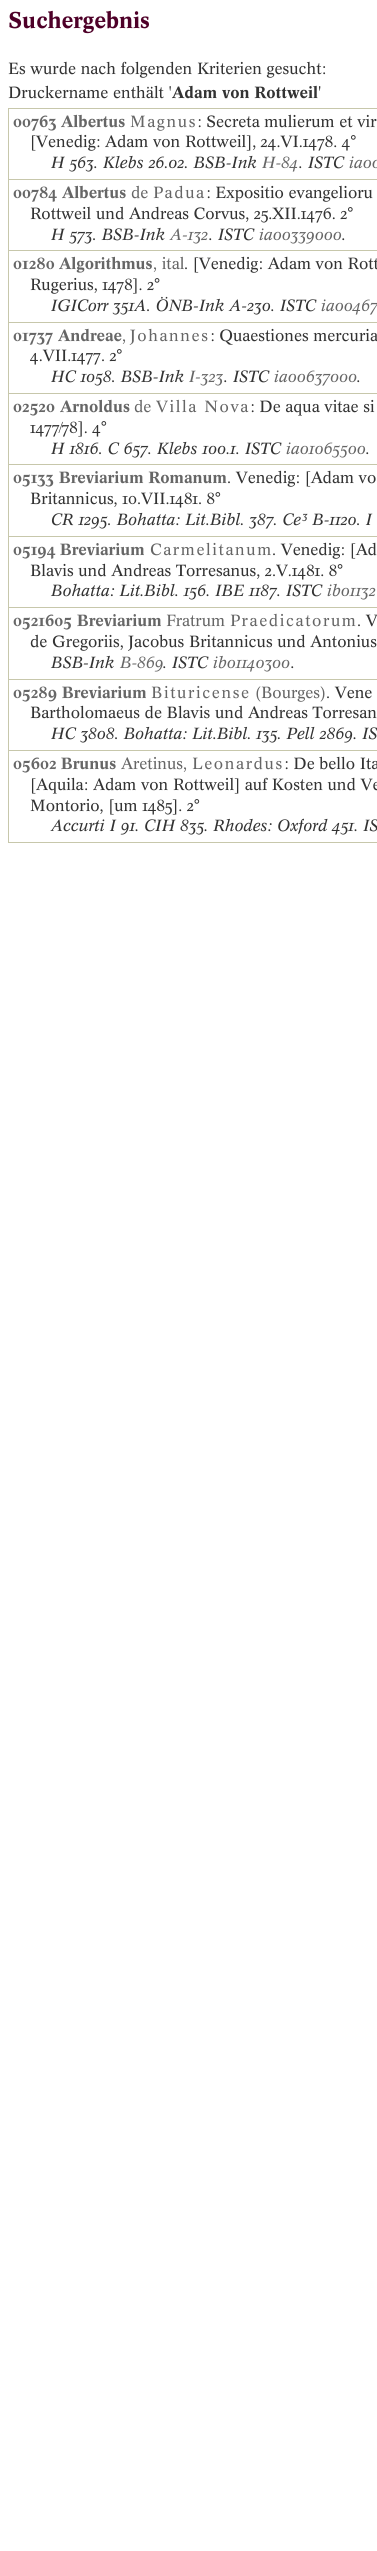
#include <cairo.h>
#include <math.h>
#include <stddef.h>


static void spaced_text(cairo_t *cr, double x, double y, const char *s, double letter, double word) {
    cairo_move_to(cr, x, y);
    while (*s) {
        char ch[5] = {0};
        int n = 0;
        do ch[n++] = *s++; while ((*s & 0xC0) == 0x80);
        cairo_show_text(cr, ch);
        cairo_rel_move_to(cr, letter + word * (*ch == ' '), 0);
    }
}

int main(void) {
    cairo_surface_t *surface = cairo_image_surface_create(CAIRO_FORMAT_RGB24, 377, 2551);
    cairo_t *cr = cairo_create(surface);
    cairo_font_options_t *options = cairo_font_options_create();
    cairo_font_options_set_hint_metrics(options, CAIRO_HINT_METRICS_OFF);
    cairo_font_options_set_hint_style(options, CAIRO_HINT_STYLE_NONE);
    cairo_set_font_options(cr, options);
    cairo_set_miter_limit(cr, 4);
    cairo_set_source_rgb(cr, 1, 1, 1);
    cairo_paint(cr);
    cairo_select_font_face(cr, "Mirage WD", CAIRO_FONT_SLANT_NORMAL, CAIRO_FONT_WEIGHT_BOLD);
    cairo_set_font_size(cr, 22.5);
    cairo_set_source_rgb(cr, 0.306, 0, 0.157);
    cairo_move_to(cr, 8, 28);
    cairo_show_text(cr, "Suchergebnis");
    cairo_select_font_face(cr, "Mirage WD", CAIRO_FONT_SLANT_NORMAL, CAIRO_FONT_WEIGHT_NORMAL);
    cairo_set_font_size(cr, 16);
    cairo_set_source_rgb(cr, 0.2, 0.2, 0.2);
    cairo_move_to(cr, 8, 74);
    cairo_show_text(cr, "Es wurde nach folgenden Kriterien gesucht:");
    cairo_move_to(cr, 8, 98);
    cairo_show_text(cr, "Druckername enthält '");
    cairo_select_font_face(cr, "Mirage WD", CAIRO_FONT_SLANT_NORMAL, CAIRO_FONT_WEIGHT_BOLD);
    cairo_move_to(cr, 172, 98);
    cairo_show_text(cr, "Adam von Rottweil");
    cairo_select_font_face(cr, "Mirage WD", CAIRO_FONT_SLANT_NORMAL, CAIRO_FONT_WEIGHT_NORMAL);
    cairo_move_to(cr, 318, 98);
    cairo_show_text(cr, "'");
    cairo_set_source_rgb(cr, 0.78, 0.78, 0.671);
    cairo_rectangle(cr, 8, 108, 369, 735);
    cairo_fill(cr);
    cairo_set_source_rgb(cr, 1, 1, 1);
    cairo_rectangle(cr, 9, 109, 368, 70);
    cairo_fill(cr);
    cairo_select_font_face(cr, "Mirage WD", CAIRO_FONT_SLANT_NORMAL, CAIRO_FONT_WEIGHT_BOLD);
    cairo_set_source_rgb(cr, 0.4, 0.4, 0.4);
    cairo_move_to(cr, 13, 127);
    cairo_show_text(cr, "00763");
    cairo_move_to(cr, 61, 127);
    cairo_show_text(cr, "Albertus");
    cairo_select_font_face(cr, "Mirage WD", CAIRO_FONT_SLANT_NORMAL, CAIRO_FONT_WEIGHT_NORMAL);
    spaced_text(cr, 130, 127, "Magnus", 1.6, 0);
    cairo_set_source_rgb(cr, 0.2, 0.2, 0.2);
    cairo_move_to(cr, 197, 127);
    cairo_show_text(cr, ": Secreta mulierum et vir");
    cairo_move_to(cr, 30, 147);
    cairo_show_text(cr, "[Venedig: Adam von Rottweil], 24.VI.1478. 4°");
    cairo_select_font_face(cr, "Mirage WD", CAIRO_FONT_SLANT_ITALIC, CAIRO_FONT_WEIGHT_NORMAL);
    cairo_move_to(cr, 51, 168);
    cairo_show_text(cr, "H 563. Klebs 26.02. BSB-Ink");
    cairo_set_source_rgb(cr, 0.4, 0.4, 0.4);
    cairo_move_to(cr, 262, 168);
    cairo_show_text(cr, "H-84");
    cairo_set_source_rgb(cr, 0.2, 0.2, 0.2);
    cairo_move_to(cr, 299, 168);
    cairo_show_text(cr, ". ISTC");
    cairo_set_source_rgb(cr, 0.4, 0.4, 0.4);
    cairo_move_to(cr, 349, 168);
    cairo_show_text(cr, "ia00");
    cairo_set_source_rgb(cr, 1, 1, 1);
    cairo_rectangle(cr, 9, 180, 368, 70);
    cairo_fill(cr);
    cairo_select_font_face(cr, "Mirage WD", CAIRO_FONT_SLANT_NORMAL, CAIRO_FONT_WEIGHT_BOLD);
    cairo_set_source_rgb(cr, 0.4, 0.4, 0.4);
    cairo_move_to(cr, 13, 198);
    cairo_show_text(cr, "00784");
    cairo_move_to(cr, 62, 198);
    cairo_show_text(cr, "Albertus");
    cairo_select_font_face(cr, "Mirage WD", CAIRO_FONT_SLANT_NORMAL, CAIRO_FONT_WEIGHT_NORMAL);
    cairo_move_to(cr, 131, 198);
    cairo_show_text(cr, "de");
    spaced_text(cr, 153, 198, "Padua", 1.6, 0);
    cairo_set_source_rgb(cr, 0.2, 0.2, 0.2);
    cairo_move_to(cr, 206, 198);
    cairo_show_text(cr, ": Expositio evangelioru");
    cairo_move_to(cr, 30, 219);
    cairo_show_text(cr, "Rottweil und Andreas Corvus, 25.XII.1476. 2°");
    cairo_select_font_face(cr, "Mirage WD", CAIRO_FONT_SLANT_ITALIC, CAIRO_FONT_WEIGHT_NORMAL);
    cairo_move_to(cr, 51, 240);
    cairo_show_text(cr, "H 573. BSB-Ink");
    cairo_set_source_rgb(cr, 0.4, 0.4, 0.4);
    cairo_move_to(cr, 170, 240);
    cairo_show_text(cr, "A-132");
    cairo_set_source_rgb(cr, 0.2, 0.2, 0.2);
    cairo_move_to(cr, 209, 240);
    cairo_show_text(cr, ". ISTC");
    cairo_set_source_rgb(cr, 0.4, 0.4, 0.4);
    cairo_move_to(cr, 259, 240);
    cairo_show_text(cr, "ia00339000");
    cairo_set_source_rgb(cr, 0.2, 0.2, 0.2);
    cairo_move_to(cr, 342, 240);
    cairo_show_text(cr, ".");
    cairo_set_source_rgb(cr, 1, 1, 1);
    cairo_rectangle(cr, 9, 251, 368, 71);
    cairo_fill(cr);
    cairo_select_font_face(cr, "Mirage WD", CAIRO_FONT_SLANT_NORMAL, CAIRO_FONT_WEIGHT_BOLD);
    cairo_set_source_rgb(cr, 0.4, 0.4, 0.4);
    cairo_move_to(cr, 13, 269);
    cairo_show_text(cr, "01280");
    cairo_move_to(cr, 59, 269);
    cairo_show_text(cr, "Algorithmus");
    cairo_select_font_face(cr, "Mirage WD", CAIRO_FONT_SLANT_NORMAL, CAIRO_FONT_WEIGHT_NORMAL);
    cairo_move_to(cr, 153, 269);
    cairo_show_text(cr, ", ital");
    cairo_set_source_rgb(cr, 0.2, 0.2, 0.2);
    cairo_move_to(cr, 184, 269);
    cairo_show_text(cr, ". [Venedig: Adam von Rott");
    cairo_move_to(cr, 30, 290);
    cairo_show_text(cr, "Rugerius, 1478]. 2°");
    cairo_select_font_face(cr, "Mirage WD", CAIRO_FONT_SLANT_ITALIC, CAIRO_FONT_WEIGHT_NORMAL);
    cairo_move_to(cr, 51, 311);
    cairo_show_text(cr, "IGICorr 351A. ÖNB-Ink A-230. ISTC");
    cairo_set_source_rgb(cr, 0.4, 0.4, 0.4);
    cairo_move_to(cr, 321, 311);
    cairo_show_text(cr, "ia00467");
    cairo_set_source_rgb(cr, 1, 1, 1);
    cairo_rectangle(cr, 9, 323, 368, 70);
    cairo_fill(cr);
    cairo_select_font_face(cr, "Mirage WD", CAIRO_FONT_SLANT_NORMAL, CAIRO_FONT_WEIGHT_BOLD);
    cairo_set_source_rgb(cr, 0.4, 0.4, 0.4);
    cairo_move_to(cr, 13, 341);
    cairo_show_text(cr, "01737");
    cairo_move_to(cr, 58, 341);
    cairo_show_text(cr, "Andreae");
    cairo_select_font_face(cr, "Mirage WD", CAIRO_FONT_SLANT_NORMAL, CAIRO_FONT_WEIGHT_NORMAL);
    cairo_move_to(cr, 122, 341);
    cairo_show_text(cr, ",");
    spaced_text(cr, 130, 341, "Johannes", 1.6, 0);
    cairo_set_source_rgb(cr, 0.2, 0.2, 0.2);
    cairo_move_to(cr, 210, 341);
    cairo_show_text(cr, ": Quaestiones mercuria");
    cairo_move_to(cr, 30, 361);
    cairo_show_text(cr, "4.VII.1477. 2°");
    cairo_select_font_face(cr, "Mirage WD", CAIRO_FONT_SLANT_ITALIC, CAIRO_FONT_WEIGHT_NORMAL);
    cairo_move_to(cr, 51, 382);
    cairo_show_text(cr, "HC 1058. BSB-Ink");
    cairo_set_source_rgb(cr, 0.4, 0.4, 0.4);
    cairo_move_to(cr, 189, 382);
    cairo_show_text(cr, "I-323");
    cairo_set_source_rgb(cr, 0.2, 0.2, 0.2);
    cairo_move_to(cr, 224, 382);
    cairo_show_text(cr, ". ISTC");
    cairo_set_source_rgb(cr, 0.4, 0.4, 0.4);
    cairo_move_to(cr, 274, 382);
    cairo_show_text(cr, "ia00637000");
    cairo_set_source_rgb(cr, 0.2, 0.2, 0.2);
    cairo_move_to(cr, 357, 382);
    cairo_show_text(cr, ".");
    cairo_set_source_rgb(cr, 1, 1, 1);
    cairo_rectangle(cr, 9, 394, 368, 70);
    cairo_fill(cr);
    cairo_select_font_face(cr, "Mirage WD", CAIRO_FONT_SLANT_NORMAL, CAIRO_FONT_WEIGHT_BOLD);
    cairo_set_source_rgb(cr, 0.4, 0.4, 0.4);
    cairo_move_to(cr, 13, 412);
    cairo_show_text(cr, "02520");
    cairo_move_to(cr, 60, 412);
    cairo_show_text(cr, "Arnoldus");
    cairo_select_font_face(cr, "Mirage WD", CAIRO_FONT_SLANT_NORMAL, CAIRO_FONT_WEIGHT_NORMAL);
    cairo_move_to(cr, 134, 412);
    cairo_show_text(cr, "de");
    spaced_text(cr, 156, 412, "Villa Nova", 1.6, 0);
    cairo_set_source_rgb(cr, 0.2, 0.2, 0.2);
    cairo_move_to(cr, 250, 412);
    cairo_show_text(cr, ": De aqua vitae si");
    cairo_move_to(cr, 30, 433);
    cairo_show_text(cr, "1477/78]. 4°");
    cairo_select_font_face(cr, "Mirage WD", CAIRO_FONT_SLANT_ITALIC, CAIRO_FONT_WEIGHT_NORMAL);
    cairo_move_to(cr, 51, 454);
    cairo_show_text(cr, "H 1816. C 657. Klebs 100.1. ISTC");
    cairo_set_source_rgb(cr, 0.4, 0.4, 0.4);
    cairo_move_to(cr, 286, 454);
    cairo_show_text(cr, "ia01065500");
    cairo_set_source_rgb(cr, 0.2, 0.2, 0.2);
    cairo_move_to(cr, 366, 454);
    cairo_show_text(cr, ".");
    cairo_set_source_rgb(cr, 1, 1, 1);
    cairo_rectangle(cr, 9, 465, 368, 71);
    cairo_fill(cr);
    cairo_select_font_face(cr, "Mirage WD", CAIRO_FONT_SLANT_NORMAL, CAIRO_FONT_WEIGHT_BOLD);
    cairo_set_source_rgb(cr, 0.4, 0.4, 0.4);
    cairo_move_to(cr, 13, 483);
    cairo_show_text(cr, "05133");
    cairo_move_to(cr, 59, 483);
    cairo_show_text(cr, "Breviarium Romanum");
    cairo_select_font_face(cr, "Mirage WD", CAIRO_FONT_SLANT_NORMAL, CAIRO_FONT_WEIGHT_NORMAL);
    cairo_set_source_rgb(cr, 0.2, 0.2, 0.2);
    cairo_move_to(cr, 227, 483);
    cairo_show_text(cr, ". Venedig: [Adam vo");
    cairo_move_to(cr, 30, 504);
    cairo_show_text(cr, "Britannicus, 10.VII.1481. 8°");
    cairo_select_font_face(cr, "Mirage WD", CAIRO_FONT_SLANT_ITALIC, CAIRO_FONT_WEIGHT_NORMAL);
    cairo_move_to(cr, 51, 525);
    cairo_show_text(cr, "CR 1295. Bohatta: Lit.Bibl. 387. Ce³ B-1120. I");
    cairo_set_source_rgb(cr, 1, 1, 1);
    cairo_rectangle(cr, 9, 537, 368, 70);
    cairo_fill(cr);
    cairo_select_font_face(cr, "Mirage WD", CAIRO_FONT_SLANT_NORMAL, CAIRO_FONT_WEIGHT_BOLD);
    cairo_set_source_rgb(cr, 0.4, 0.4, 0.4);
    cairo_move_to(cr, 13, 555);
    cairo_show_text(cr, "05194");
    cairo_move_to(cr, 60, 555);
    cairo_show_text(cr, "Breviarium");
    cairo_select_font_face(cr, "Mirage WD", CAIRO_FONT_SLANT_NORMAL, CAIRO_FONT_WEIGHT_NORMAL);
    spaced_text(cr, 150, 555, "Carmelitanum", 1.6, 0);
    cairo_set_source_rgb(cr, 0.2, 0.2, 0.2);
    cairo_move_to(cr, 272, 555);
    cairo_show_text(cr, ". Venedig: [Ad");
    cairo_move_to(cr, 30, 576);
    cairo_show_text(cr, "Blavis und Andreas Torresanus, 2.V.1481. 8°");
    cairo_select_font_face(cr, "Mirage WD", CAIRO_FONT_SLANT_ITALIC, CAIRO_FONT_WEIGHT_NORMAL);
    cairo_move_to(cr, 51, 596);
    cairo_show_text(cr, "Bohatta: Lit.Bibl. 156. IBE 1187. ISTC");
    cairo_set_source_rgb(cr, 0.4, 0.4, 0.4);
    cairo_move_to(cr, 327, 596);
    cairo_show_text(cr, "ib01132");
    cairo_set_source_rgb(cr, 1, 1, 1);
    cairo_rectangle(cr, 9, 608, 368, 71);
    cairo_fill(cr);
    cairo_select_font_face(cr, "Mirage WD", CAIRO_FONT_SLANT_NORMAL, CAIRO_FONT_WEIGHT_BOLD);
    cairo_set_source_rgb(cr, 0.4, 0.4, 0.4);
    cairo_move_to(cr, 13, 626);
    cairo_show_text(cr, "0521605");
    cairo_move_to(cr, 77, 626);
    cairo_show_text(cr, "Breviarium");
    cairo_select_font_face(cr, "Mirage WD", CAIRO_FONT_SLANT_NORMAL, CAIRO_FONT_WEIGHT_NORMAL);
    cairo_move_to(cr, 166, 626);
    cairo_show_text(cr, "Fratrum");
    spaced_text(cr, 230, 626, "Praedicatorum", 1.6, 0);
    cairo_set_source_rgb(cr, 0.2, 0.2, 0.2);
    cairo_move_to(cr, 357, 626);
    cairo_show_text(cr, ". V");
    cairo_move_to(cr, 30, 647);
    cairo_show_text(cr, "de Gregoriis, Jacobus Britannicus und Antonius");
    cairo_select_font_face(cr, "Mirage WD", CAIRO_FONT_SLANT_ITALIC, CAIRO_FONT_WEIGHT_NORMAL);
    cairo_move_to(cr, 51, 668);
    cairo_show_text(cr, "BSB-Ink");
    cairo_set_source_rgb(cr, 0.4, 0.4, 0.4);
    cairo_move_to(cr, 120, 668);
    cairo_show_text(cr, "B-869");
    cairo_set_source_rgb(cr, 0.2, 0.2, 0.2);
    cairo_move_to(cr, 163, 668);
    cairo_show_text(cr, ". ISTC");
    cairo_set_source_rgb(cr, 0.4, 0.4, 0.4);
    cairo_move_to(cr, 213, 668);
    cairo_show_text(cr, "ib01140300");
    cairo_set_source_rgb(cr, 0.2, 0.2, 0.2);
    cairo_move_to(cr, 291, 668);
    cairo_show_text(cr, ".");
    cairo_set_source_rgb(cr, 1, 1, 1);
    cairo_rectangle(cr, 9, 680, 368, 70);
    cairo_fill(cr);
    cairo_select_font_face(cr, "Mirage WD", CAIRO_FONT_SLANT_NORMAL, CAIRO_FONT_WEIGHT_BOLD);
    cairo_set_source_rgb(cr, 0.4, 0.4, 0.4);
    cairo_move_to(cr, 13, 698);
    cairo_show_text(cr, "05289");
    cairo_move_to(cr, 62, 698);
    cairo_show_text(cr, "Breviarium");
    cairo_select_font_face(cr, "Mirage WD", CAIRO_FONT_SLANT_NORMAL, CAIRO_FONT_WEIGHT_NORMAL);
    spaced_text(cr, 151, 698, "Bituricense", 1.6, 0);
    cairo_move_to(cr, 255, 698);
    cairo_show_text(cr, "(Bourges)");
    cairo_set_source_rgb(cr, 0.2, 0.2, 0.2);
    cairo_move_to(cr, 326, 698);
    cairo_show_text(cr, ". Vene");
    cairo_move_to(cr, 30, 718);
    cairo_show_text(cr, "Bartholomaeus de Blavis und Andreas Torresan");
    cairo_select_font_face(cr, "Mirage WD", CAIRO_FONT_SLANT_ITALIC, CAIRO_FONT_WEIGHT_NORMAL);
    cairo_move_to(cr, 51, 739);
    cairo_show_text(cr, "HC 3808. Bohatta: Lit.Bibl. 135. Pell 2869. IS");
    cairo_set_source_rgb(cr, 1, 1, 1);
    cairo_rectangle(cr, 9, 751, 368, 91);
    cairo_fill(cr);
    cairo_select_font_face(cr, "Mirage WD", CAIRO_FONT_SLANT_NORMAL, CAIRO_FONT_WEIGHT_BOLD);
    cairo_set_source_rgb(cr, 0.4, 0.4, 0.4);
    cairo_move_to(cr, 13, 769);
    cairo_show_text(cr, "05602");
    cairo_move_to(cr, 61, 769);
    cairo_show_text(cr, "Brunus");
    cairo_select_font_face(cr, "Mirage WD", CAIRO_FONT_SLANT_NORMAL, CAIRO_FONT_WEIGHT_NORMAL);
    cairo_move_to(cr, 121, 769);
    cairo_show_text(cr, "Aretinus,");
    spaced_text(cr, 192, 769, "Leonardus", 1.6, 0);
    cairo_set_source_rgb(cr, 0.2, 0.2, 0.2);
    cairo_move_to(cr, 284, 769);
    cairo_show_text(cr, ": De bello Ita");
    cairo_move_to(cr, 30, 790);
    cairo_show_text(cr, "[Aquila: Adam von Rottweil] auf Kosten und Ve");
    cairo_move_to(cr, 30, 811);
    cairo_show_text(cr, "Montorio, [um 1485]. 2°");
    cairo_select_font_face(cr, "Mirage WD", CAIRO_FONT_SLANT_ITALIC, CAIRO_FONT_WEIGHT_NORMAL);
    cairo_move_to(cr, 51, 831);
    cairo_show_text(cr, "Accurti I 91. CIH 835. Rhodes: Oxford 451. IS");
    cairo_surface_write_to_png(surface, "page.png");
    cairo_font_options_destroy(options);
    cairo_destroy(cr);
    cairo_surface_destroy(surface);
    return 0;
}
